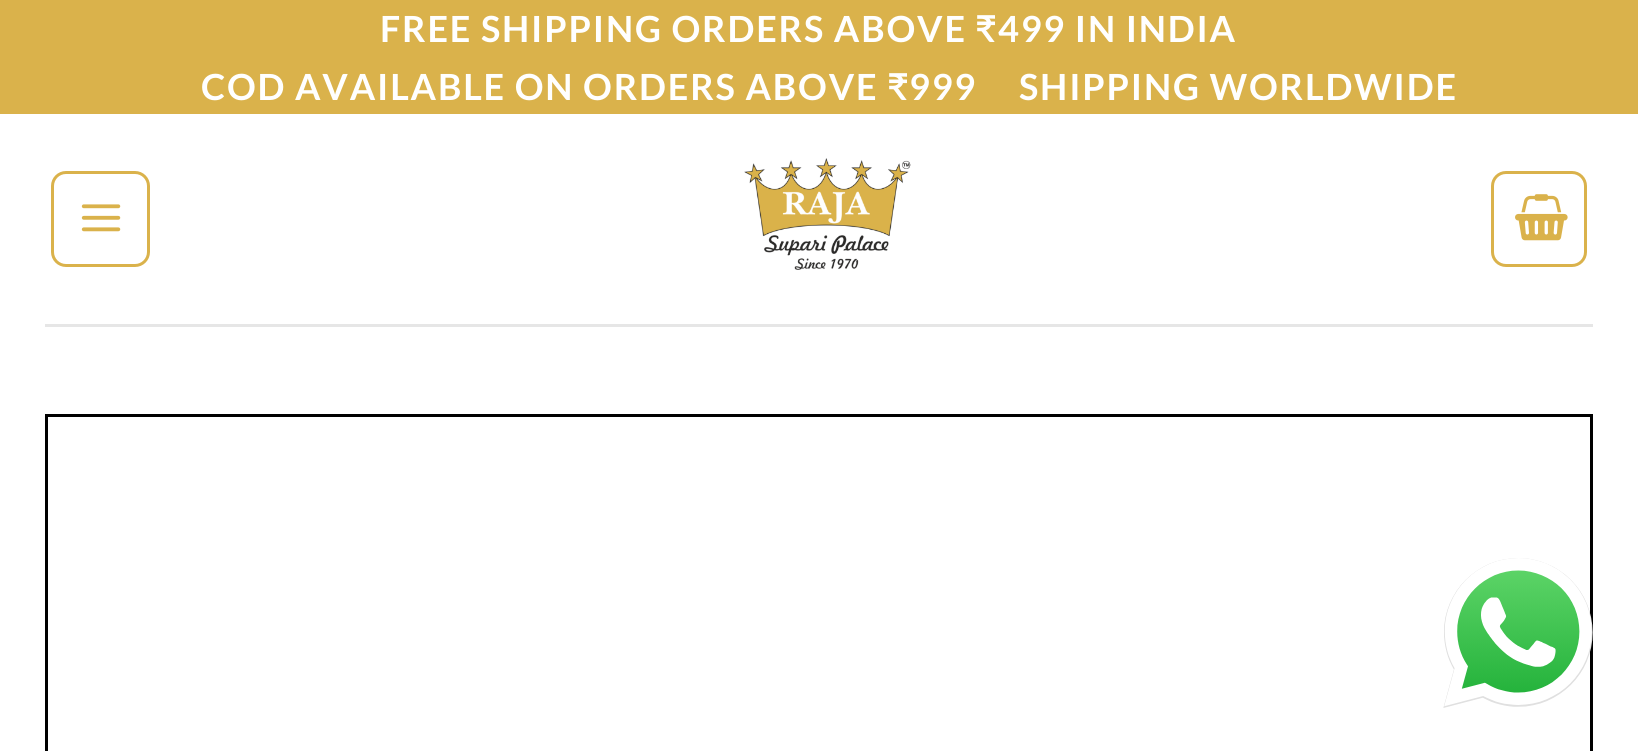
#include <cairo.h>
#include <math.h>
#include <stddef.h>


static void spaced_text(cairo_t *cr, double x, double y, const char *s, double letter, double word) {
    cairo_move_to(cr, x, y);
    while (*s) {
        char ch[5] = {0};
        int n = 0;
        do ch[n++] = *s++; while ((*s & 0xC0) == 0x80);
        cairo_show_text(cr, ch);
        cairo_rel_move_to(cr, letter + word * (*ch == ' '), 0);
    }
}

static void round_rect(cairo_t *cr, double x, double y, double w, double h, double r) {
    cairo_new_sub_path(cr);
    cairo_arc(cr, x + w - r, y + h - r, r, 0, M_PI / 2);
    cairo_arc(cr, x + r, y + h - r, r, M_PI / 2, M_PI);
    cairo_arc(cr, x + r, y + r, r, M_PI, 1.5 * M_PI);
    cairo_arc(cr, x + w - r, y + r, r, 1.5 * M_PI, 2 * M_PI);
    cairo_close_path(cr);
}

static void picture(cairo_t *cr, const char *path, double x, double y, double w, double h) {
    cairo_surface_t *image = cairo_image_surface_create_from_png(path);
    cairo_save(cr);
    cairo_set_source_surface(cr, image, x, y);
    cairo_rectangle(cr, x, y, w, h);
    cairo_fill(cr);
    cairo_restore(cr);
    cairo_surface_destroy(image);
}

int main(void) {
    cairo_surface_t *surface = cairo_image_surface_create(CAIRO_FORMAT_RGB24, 1638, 751);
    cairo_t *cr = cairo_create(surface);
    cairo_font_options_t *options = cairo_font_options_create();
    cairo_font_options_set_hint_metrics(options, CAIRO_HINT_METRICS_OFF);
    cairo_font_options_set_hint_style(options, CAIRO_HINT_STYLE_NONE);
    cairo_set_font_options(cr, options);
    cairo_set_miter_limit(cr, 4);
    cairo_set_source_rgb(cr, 1, 1, 1);
    cairo_paint(cr);
    cairo_set_source_rgb(cr, 0.855, 0.698, 0.294);
    cairo_rectangle(cr, 0, 0, 1638, 114);
    cairo_fill(cr);
    cairo_select_font_face(cr, "Lato", CAIRO_FONT_SLANT_NORMAL, CAIRO_FONT_WEIGHT_BOLD);
    cairo_set_font_size(cr, 36);
    cairo_set_source_rgb(cr, 1, 1, 1);
    spaced_text(cr, 380, 42, "FREE SHIPPING ORDERS ABOVE", 1.8, 0);
    cairo_select_font_face(cr, "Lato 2", CAIRO_FONT_SLANT_NORMAL, CAIRO_FONT_WEIGHT_BOLD);
    spaced_text(cr, 975, 42, "₹", 1.8, 0);
    cairo_select_font_face(cr, "Lato", CAIRO_FONT_SLANT_NORMAL, CAIRO_FONT_WEIGHT_BOLD);
    spaced_text(cr, 998, 42, "499 IN INDIA", 1.8, 0);
    spaced_text(cr, 201, 100, "COD AVAILABLE ON ORDERS ABOVE", 1.8, 0);
    cairo_select_font_face(cr, "Lato 2", CAIRO_FONT_SLANT_NORMAL, CAIRO_FONT_WEIGHT_BOLD);
    spaced_text(cr, 887, 100, "₹", 1.8, 0);
    cairo_select_font_face(cr, "Lato", CAIRO_FONT_SLANT_NORMAL, CAIRO_FONT_WEIGHT_BOLD);
    spaced_text(cr, 909, 100, "999", 1.8, 0);
    spaced_text(cr, 1019, 100, "SHIPPING WORLDWIDE", 1.8, 0);
    round_rect(cr, 52.5, 172.5, 96, 93, 13.5);
    cairo_set_source_rgb(cr, 0.855, 0.698, 0.294);
    cairo_set_line_width(cr, 3);
    cairo_stroke(cr);
    picture(cr, "img1.png", 81, 204, 40, 28);
    picture(cr, "img2.png", 744, 158, 167, 112);
    round_rect(cr, 1492.5, 172.5, 93, 93, 13.5);
    cairo_stroke(cr);
    picture(cr, "img3.png", 1515, 194, 53, 47);
    cairo_set_source_rgb(cr, 0.902, 0.902, 0.902);
    cairo_rectangle(cr, 45, 324, 1548, 3);
    cairo_fill(cr);
    cairo_rectangle(cr, 46.5, 415.5, 1545, 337);
    cairo_set_source_rgb(cr, 0, 0, 0);
    cairo_stroke(cr);
    picture(cr, "img4.png", 1443, 558, 150, 150);
    cairo_surface_write_to_png(surface, "page.png");
    cairo_font_options_destroy(options);
    cairo_destroy(cr);
    cairo_surface_destroy(surface);
    return 0;
}
